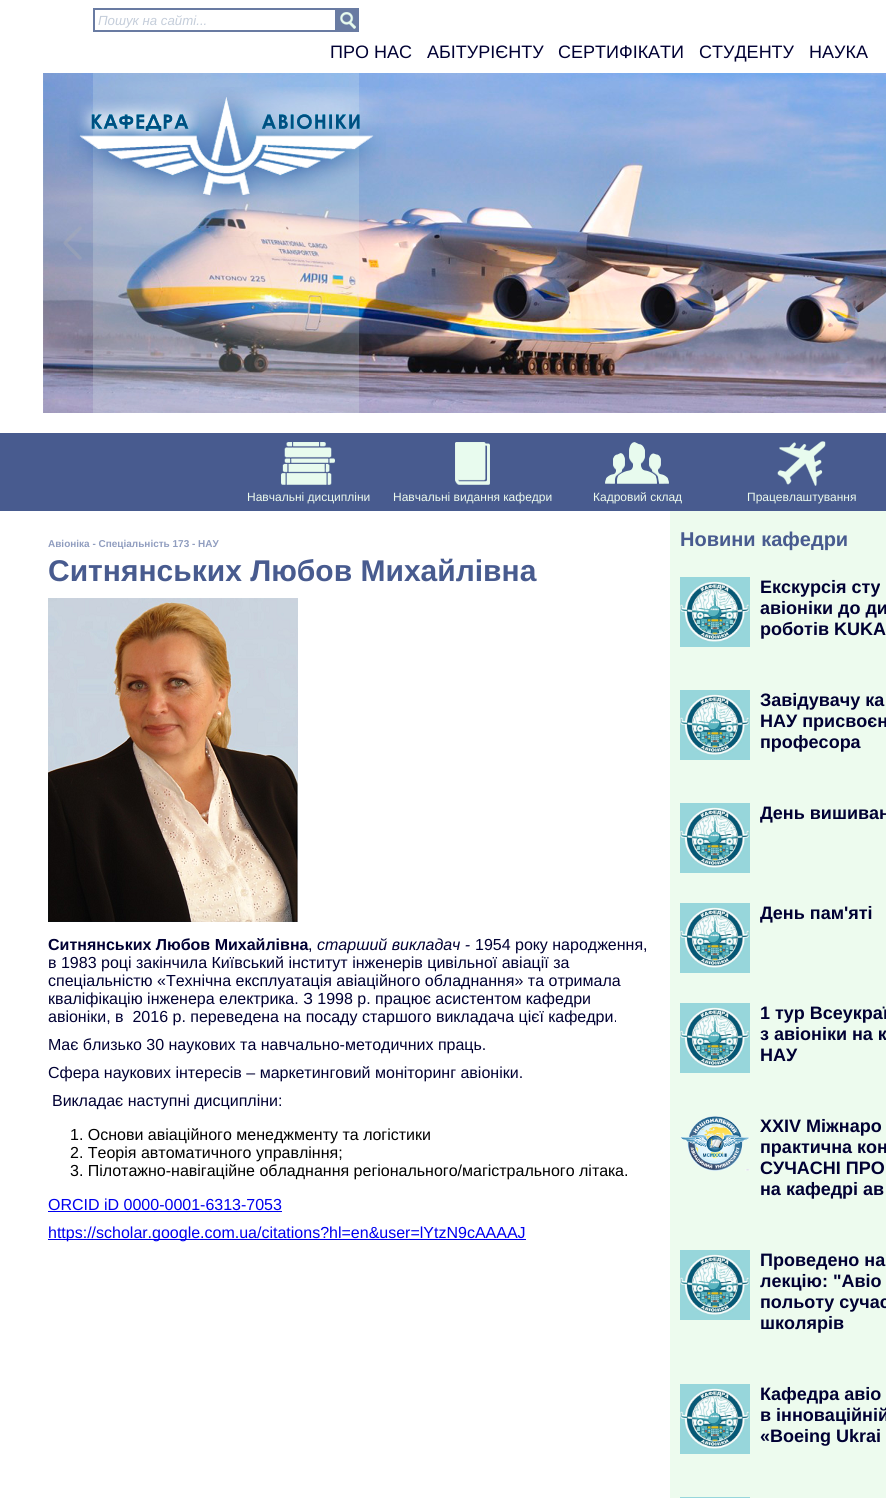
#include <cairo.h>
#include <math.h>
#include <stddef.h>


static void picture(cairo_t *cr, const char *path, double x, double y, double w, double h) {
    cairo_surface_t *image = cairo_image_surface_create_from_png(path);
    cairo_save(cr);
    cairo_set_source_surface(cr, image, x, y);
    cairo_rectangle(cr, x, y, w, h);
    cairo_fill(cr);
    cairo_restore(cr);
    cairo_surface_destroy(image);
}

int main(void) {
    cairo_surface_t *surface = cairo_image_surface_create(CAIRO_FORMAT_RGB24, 886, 1498);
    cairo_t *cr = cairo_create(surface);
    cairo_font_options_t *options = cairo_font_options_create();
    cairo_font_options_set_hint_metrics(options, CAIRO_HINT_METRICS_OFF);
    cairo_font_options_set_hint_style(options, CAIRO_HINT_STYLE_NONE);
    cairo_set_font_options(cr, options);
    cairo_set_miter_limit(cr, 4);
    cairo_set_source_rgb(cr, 1, 1, 1);
    cairo_paint(cr);
    cairo_rectangle(cr, 94, 9, 242, 22);
    cairo_set_source_rgb(cr, 0.412, 0.482, 0.635);
    cairo_stroke(cr);
    cairo_select_font_face(cr, "Liberation Sans", CAIRO_FONT_SLANT_ITALIC, CAIRO_FONT_WEIGHT_NORMAL);
    cairo_set_font_size(cr, 13.25);
    cairo_set_source_rgb(cr, 0.769, 0.804, 0.855);
    cairo_move_to(cr, 98, 25);
    cairo_show_text(cr, "Пошук на сайті...");
    cairo_set_source_rgb(cr, 0.412, 0.482, 0.635);
    cairo_rectangle(cr, 337, 8, 22, 24);
    cairo_fill(cr);
    picture(cr, "img1.png", 340, 12, 16, 17);
    cairo_select_font_face(cr, "Liberation Sans", CAIRO_FONT_SLANT_NORMAL, CAIRO_FONT_WEIGHT_NORMAL);
    cairo_set_font_size(cr, 18);
    cairo_set_source_rgb(cr, 0, 0, 0.2);
    cairo_move_to(cr, 330, 58);
    cairo_show_text(cr, "ПРО НАС");
    cairo_move_to(cr, 427, 58);
    cairo_show_text(cr, "АБІТУРІЄНТУ");
    cairo_move_to(cr, 558, 58);
    cairo_show_text(cr, "СЕРТИФІКАТИ");
    cairo_move_to(cr, 699, 58);
    cairo_show_text(cr, "СТУДЕНТУ");
    cairo_move_to(cr, 809, 58);
    cairo_show_text(cr, "НАУКА");
    picture(cr, "img2.png", 43, 73, 843, 340);
    cairo_set_source_rgba(cr, 0.902, 0.98, 0.941, 0.2);
    cairo_rectangle(cr, 93, 73, 266, 340);
    cairo_fill(cr);
    picture(cr, "img3.png", 69, 87, 317, 125);
    picture(cr, "img4.png", 63, 226, 19, 34);
    cairo_set_source_rgb(cr, 0.282, 0.357, 0.561);
    cairo_rectangle(cr, 0, 433, 886, 78);
    cairo_fill(cr);
    picture(cr, "img5.png", 281, 442, 54, 43);
    cairo_set_font_size(cr, 12);
    cairo_set_source_rgb(cr, 0.929, 0.984, 0.933);
    cairo_move_to(cr, 247, 501);
    cairo_show_text(cr, "Навчальні дисципліни");
    picture(cr, "img6.png", 455, 442, 35, 43);
    cairo_move_to(cr, 393, 501);
    cairo_show_text(cr, "Навчальні видання кафедри");
    picture(cr, "img7.png", 605, 442, 64, 42);
    cairo_move_to(cr, 593, 501);
    cairo_show_text(cr, "Кадровий склад");
    picture(cr, "img8.png", 777, 441, 49, 45);
    cairo_move_to(cr, 747, 501);
    cairo_show_text(cr, "Працевлаштування");
    cairo_select_font_face(cr, "Liberation Sans", CAIRO_FONT_SLANT_NORMAL, CAIRO_FONT_WEIGHT_BOLD);
    cairo_set_font_size(cr, 10);
    cairo_set_source_rgb(cr, 0.565, 0.616, 0.749);
    cairo_move_to(cr, 48, 547);
    cairo_show_text(cr, "Авіоніка - Спеціальність 173 - НАУ");
    cairo_set_font_size(cr, 30);
    cairo_set_source_rgb(cr, 0.282, 0.357, 0.561);
    cairo_move_to(cr, 48, 581);
    cairo_show_text(cr, "Ситнянських Любов Михайлівна");
    picture(cr, "img9.png", 48, 598, 250, 324);
    cairo_set_font_size(cr, 16);
    cairo_set_source_rgb(cr, 0, 0, 0.2);
    cairo_move_to(cr, 48, 950);
    cairo_show_text(cr, "Ситнянських Любов Михайлівна");
    cairo_select_font_face(cr, "Liberation Sans", CAIRO_FONT_SLANT_NORMAL, CAIRO_FONT_WEIGHT_NORMAL);
    cairo_move_to(cr, 308, 950);
    cairo_show_text(cr, ",");
    cairo_select_font_face(cr, "Liberation Sans", CAIRO_FONT_SLANT_ITALIC, CAIRO_FONT_WEIGHT_NORMAL);
    cairo_move_to(cr, 317, 950);
    cairo_show_text(cr, "старший викладач -");
    cairo_select_font_face(cr, "Liberation Sans", CAIRO_FONT_SLANT_NORMAL, CAIRO_FONT_WEIGHT_NORMAL);
    cairo_move_to(cr, 475, 950);
    cairo_show_text(cr, "1954 року народження,");
    cairo_move_to(cr, 48, 968);
    cairo_show_text(cr, "в 1983 році закінчила Київський інститут інженерів цивільної авіації за");
    cairo_move_to(cr, 48, 986);
    cairo_show_text(cr, "спеціальністю «Технічна експлуатація авіаційного обладнання» та отримала");
    cairo_move_to(cr, 48, 1004);
    cairo_show_text(cr, "кваліфікацію інженера електрика. З 1998 р. працює асистентом кафедри");
    cairo_move_to(cr, 48, 1022);
    cairo_show_text(cr, "авіоніки, в  2016 р. переведена на посаду старшого викладача цієї кафедри.");
    cairo_move_to(cr, 48, 1050);
    cairo_show_text(cr, "Має близько 30 наукових та навчально-методичних праць.");
    cairo_move_to(cr, 48, 1078);
    cairo_show_text(cr, "Сфера наукових інтересів – маркетинговий моніторинг авіоніки.");
    cairo_move_to(cr, 52, 1106);
    cairo_show_text(cr, "Викладає наступні дисципліни:");
    cairo_set_source_rgb(cr, 0, 0, 0);
    cairo_move_to(cr, 70, 1140);
    cairo_show_text(cr, "1. Основи авіаційного менеджменту та логістики");
    cairo_move_to(cr, 70, 1158);
    cairo_show_text(cr, "2. Теорія автоматичного управління;");
    cairo_move_to(cr, 70, 1176);
    cairo_show_text(cr, "3. Пілотажно-навігаційне обладнання регіонального/магістрального літака.");
    cairo_set_source_rgb(cr, 0, 0, 0.933);
    cairo_move_to(cr, 48, 1210);
    cairo_show_text(cr, "ORCID iD 0000-0001-6313-7053");
    cairo_rectangle(cr, 48, 1211, 234, 1);
    cairo_fill(cr);
    cairo_rectangle(cr, 48, 1239, 478, 1);
    cairo_fill(cr);
    cairo_move_to(cr, 48, 1238);
    cairo_show_text(cr, "https://scholar.google.com.ua/citations?hl=en&user=lYtzN9cAAAAJ");
    cairo_set_source_rgb(cr, 0.929, 0.984, 0.933);
    cairo_rectangle(cr, 670, 511, 216, 987);
    cairo_fill(cr);
    cairo_select_font_face(cr, "Liberation Sans", CAIRO_FONT_SLANT_NORMAL, CAIRO_FONT_WEIGHT_BOLD);
    cairo_set_font_size(cr, 20);
    cairo_set_source_rgb(cr, 0.282, 0.357, 0.561);
    cairo_move_to(cr, 680, 546);
    cairo_show_text(cr, "Новини кафедри");
    picture(cr, "img10.png", 680, 577, 70, 70);
    cairo_set_font_size(cr, 18);
    cairo_set_source_rgb(cr, 0, 0, 0.2);
    cairo_move_to(cr, 760, 593);
    cairo_show_text(cr, "Екскурсія сту");
    cairo_move_to(cr, 760, 614);
    cairo_show_text(cr, "авіоніки до ди");
    cairo_move_to(cr, 760, 635);
    cairo_show_text(cr, "роботів KUKA");
    picture(cr, "img11.png", 680, 690, 70, 70);
    cairo_move_to(cr, 760, 706);
    cairo_show_text(cr, "Завідувачу ка");
    cairo_move_to(cr, 760, 727);
    cairo_show_text(cr, "НАУ присвоєн");
    cairo_move_to(cr, 760, 748);
    cairo_show_text(cr, "професора");
    picture(cr, "img12.png", 680, 803, 70, 70);
    cairo_move_to(cr, 760, 819);
    cairo_show_text(cr, "День вишиван");
    picture(cr, "img11.png", 680, 903, 70, 70);
    cairo_move_to(cr, 760, 919);
    cairo_show_text(cr, "День пам'яті");
    picture(cr, "img13.png", 680, 1003, 70, 70);
    cairo_move_to(cr, 760, 1019);
    cairo_show_text(cr, "1 тур Всеукраї");
    cairo_move_to(cr, 760, 1040);
    cairo_show_text(cr, "з авіоніки на к");
    cairo_move_to(cr, 760, 1061);
    cairo_show_text(cr, "НАУ");
    picture(cr, "img14.png", 680, 1116, 70, 55);
    cairo_move_to(cr, 760, 1132);
    cairo_show_text(cr, "ХХІV Міжнаро");
    cairo_move_to(cr, 760, 1153);
    cairo_show_text(cr, "практична кон");
    cairo_move_to(cr, 760, 1174);
    cairo_show_text(cr, "СУЧАСНІ ПРО");
    cairo_move_to(cr, 760, 1195);
    cairo_show_text(cr, "на кафедрі ав");
    picture(cr, "img10.png", 680, 1250, 70, 70);
    cairo_move_to(cr, 760, 1266);
    cairo_show_text(cr, "Проведено на");
    cairo_move_to(cr, 760, 1287);
    cairo_show_text(cr, "лекцію: \"Авіо");
    cairo_move_to(cr, 760, 1308);
    cairo_show_text(cr, "польоту сучас");
    cairo_move_to(cr, 760, 1329);
    cairo_show_text(cr, "школярів");
    picture(cr, "img11.png", 680, 1384, 70, 70);
    cairo_move_to(cr, 760, 1400);
    cairo_show_text(cr, "Кафедра авіо");
    cairo_move_to(cr, 760, 1421);
    cairo_show_text(cr, "в інноваційній");
    cairo_move_to(cr, 760, 1442);
    cairo_show_text(cr, "«Boeing Ukrai");
    cairo_set_source_rgb(cr, 0.592, 0.839, 0.859);
    cairo_rectangle(cr, 680, 1497, 70, 1);
    cairo_fill(cr);
    cairo_surface_write_to_png(surface, "page.png");
    cairo_font_options_destroy(options);
    cairo_destroy(cr);
    cairo_surface_destroy(surface);
    return 0;
}
